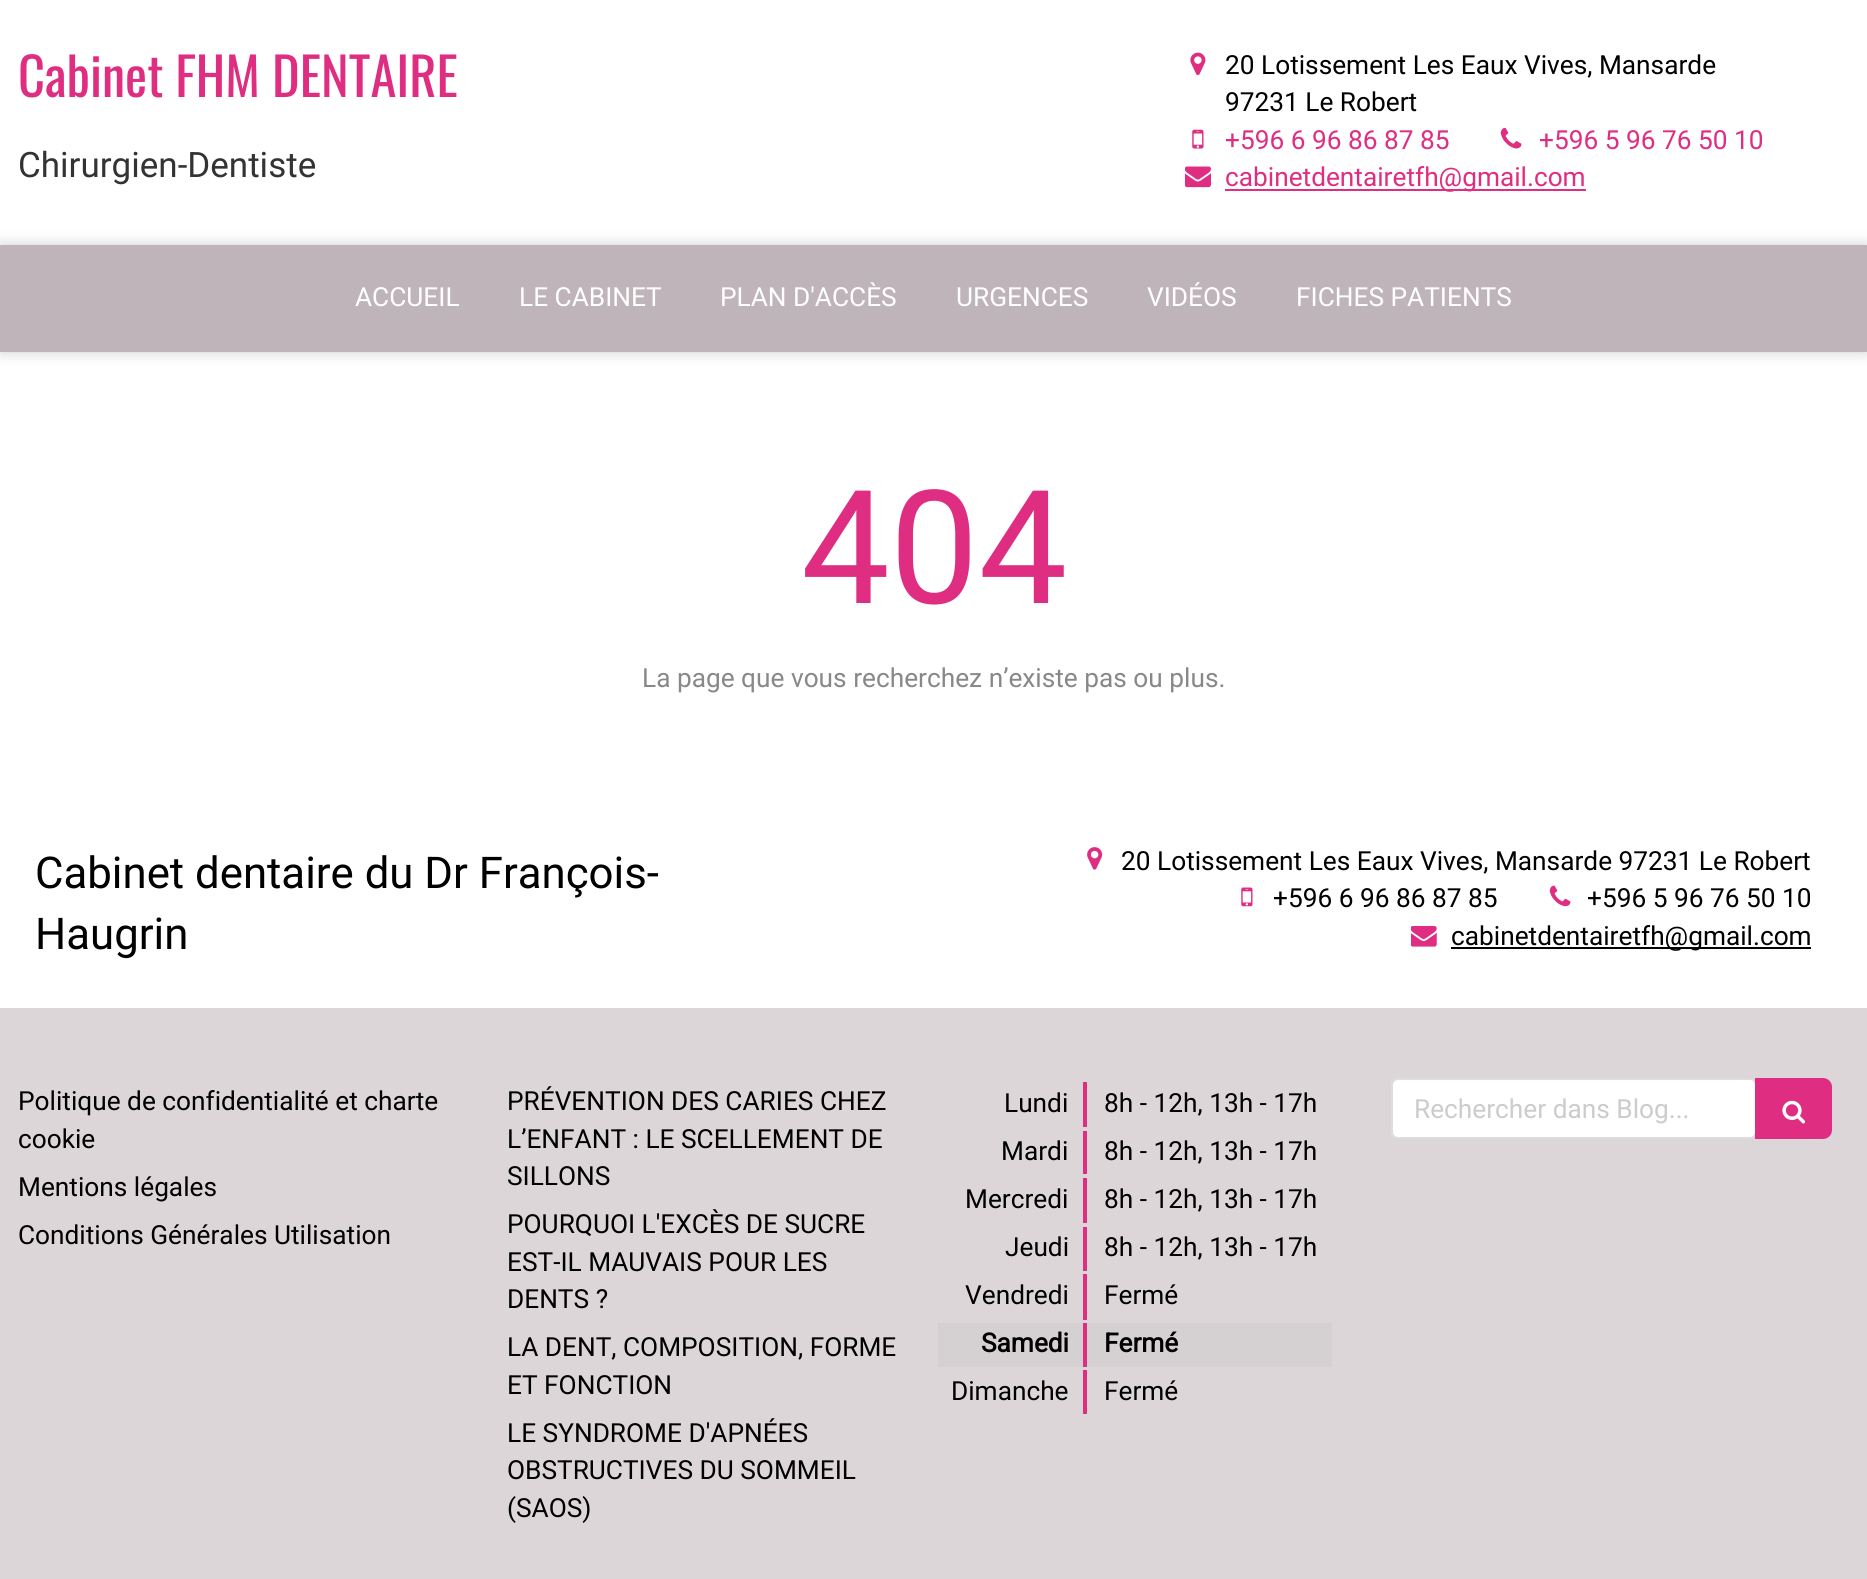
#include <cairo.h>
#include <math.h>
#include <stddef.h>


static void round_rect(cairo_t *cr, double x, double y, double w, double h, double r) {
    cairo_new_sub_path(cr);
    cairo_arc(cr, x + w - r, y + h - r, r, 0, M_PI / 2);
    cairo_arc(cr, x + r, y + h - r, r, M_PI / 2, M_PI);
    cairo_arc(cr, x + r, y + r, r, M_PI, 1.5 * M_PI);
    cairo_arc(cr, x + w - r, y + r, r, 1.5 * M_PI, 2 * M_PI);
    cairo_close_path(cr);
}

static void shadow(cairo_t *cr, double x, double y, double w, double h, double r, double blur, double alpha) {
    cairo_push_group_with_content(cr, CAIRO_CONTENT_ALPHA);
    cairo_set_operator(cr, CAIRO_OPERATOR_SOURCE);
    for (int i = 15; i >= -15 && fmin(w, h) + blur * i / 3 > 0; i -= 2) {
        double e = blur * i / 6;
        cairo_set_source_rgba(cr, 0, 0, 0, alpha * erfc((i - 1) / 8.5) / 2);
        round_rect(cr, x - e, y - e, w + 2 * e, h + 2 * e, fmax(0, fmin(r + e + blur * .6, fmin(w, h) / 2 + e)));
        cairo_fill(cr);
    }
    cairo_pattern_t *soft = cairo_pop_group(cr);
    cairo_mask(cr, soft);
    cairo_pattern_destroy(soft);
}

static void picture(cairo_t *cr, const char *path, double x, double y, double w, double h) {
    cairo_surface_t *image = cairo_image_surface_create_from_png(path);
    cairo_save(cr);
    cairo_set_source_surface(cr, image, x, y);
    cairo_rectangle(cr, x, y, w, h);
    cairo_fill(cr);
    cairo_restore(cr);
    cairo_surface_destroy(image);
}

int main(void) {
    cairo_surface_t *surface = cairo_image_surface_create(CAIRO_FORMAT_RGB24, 1867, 1579);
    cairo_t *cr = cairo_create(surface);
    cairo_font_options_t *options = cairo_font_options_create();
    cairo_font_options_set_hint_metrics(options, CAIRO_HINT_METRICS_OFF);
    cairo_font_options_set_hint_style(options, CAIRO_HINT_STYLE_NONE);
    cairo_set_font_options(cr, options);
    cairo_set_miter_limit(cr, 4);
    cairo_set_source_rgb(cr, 1, 1, 1);
    cairo_paint(cr);
    cairo_select_font_face(cr, "Oswald", CAIRO_FONT_SLANT_NORMAL, CAIRO_FONT_WEIGHT_NORMAL);
    cairo_set_font_size(cr, 52.5);
    cairo_set_source_rgb(cr, 0.875, 0.18, 0.51);
    cairo_move_to(cr, 18, 97);
    cairo_show_text(cr, "Cabinet FHM DENTAIRE");
    picture(cr, "img1.png", 1190, 52, 16, 24);
    cairo_select_font_face(cr, "Roboto", CAIRO_FONT_SLANT_NORMAL, CAIRO_FONT_WEIGHT_NORMAL);
    cairo_set_font_size(cr, 26.25);
    cairo_set_source_rgb(cr, 0, 0, 0);
    cairo_move_to(cr, 1225, 74);
    cairo_show_text(cr, "20 Lotissement Les Eaux Vives, Mansarde");
    cairo_move_to(cr, 1225, 111);
    cairo_show_text(cr, "97231 Le Robert");
    picture(cr, "img2.png", 1192, 129, 12, 20);
    cairo_set_source_rgb(cr, 0.875, 0.18, 0.51);
    cairo_move_to(cr, 1225, 149);
    cairo_show_text(cr, "+596 6 96 86 87 85");
    picture(cr, "img3.png", 1500, 127, 22, 22);
    cairo_move_to(cr, 1539, 149);
    cairo_show_text(cr, "+596 5 96 76 50 10");
    picture(cr, "img4.png", 1185, 166, 26, 22);
    cairo_rectangle(cr, 1225, 189, 361, 2);
    cairo_fill(cr);
    cairo_move_to(cr, 1225, 186);
    cairo_show_text(cr, "cabinetdentairetfh@gmail.com");
    cairo_set_font_size(cr, 35);
    cairo_set_source_rgb(cr, 0.2, 0.2, 0.2);
    cairo_move_to(cr, 18, 177);
    cairo_show_text(cr, "Chirurgien-Dentiste");
    cairo_set_source_rgb(cr, 0, 0, 0);
    shadow(cr, 0, 245, 1867, 107, 0, 7, 0.2);
    cairo_set_source_rgb(cr, 0.749, 0.706, 0.729);
    cairo_rectangle(cr, 0, 245, 1867, 107);
    cairo_fill(cr);
    cairo_set_font_size(cr, 26.25);
    cairo_set_source_rgb(cr, 1, 1, 1);
    cairo_move_to(cr, 355, 306);
    cairo_show_text(cr, "ACCUEIL");
    cairo_move_to(cr, 519, 306);
    cairo_show_text(cr, "LE CABINET");
    cairo_move_to(cr, 720, 306);
    cairo_show_text(cr, "PLAN D'ACCÈS");
    cairo_move_to(cr, 956, 306);
    cairo_show_text(cr, "URGENCES");
    cairo_move_to(cr, 1147, 306);
    cairo_show_text(cr, "VIDÉOS");
    cairo_move_to(cr, 1296, 306);
    cairo_show_text(cr, "FICHES PATIENTS");
    cairo_set_font_size(cr, 158);
    cairo_set_source_rgb(cr, 0.875, 0.18, 0.51);
    cairo_move_to(cr, 801, 603);
    cairo_show_text(cr, "404");
    cairo_set_font_size(cr, 26.25);
    cairo_set_source_rgb(cr, 0.533, 0.533, 0.533);
    cairo_move_to(cr, 642, 687);
    cairo_show_text(cr, "La page que vous recherchez n’existe pas ou plus.");
    cairo_set_font_size(cr, 43.75);
    cairo_set_source_rgb(cr, 0, 0, 0);
    cairo_move_to(cr, 35, 888);
    cairo_show_text(cr, "Cabinet dentaire du Dr François-");
    cairo_move_to(cr, 35, 949);
    cairo_show_text(cr, "Haugrin");
    picture(cr, "img5.png", 1087, 847, 16, 23);
    cairo_set_font_size(cr, 26.25);
    cairo_move_to(cr, 1121, 870);
    cairo_show_text(cr, "20 Lotissement Les Eaux Vives, Mansarde 97231 Le Robert");
    picture(cr, "img6.png", 1241, 887, 12, 20);
    cairo_move_to(cr, 1273, 907);
    cairo_show_text(cr, "+596 6 96 86 87 85");
    picture(cr, "img7.png", 1549, 885, 22, 22);
    cairo_move_to(cr, 1587, 907);
    cairo_show_text(cr, "+596 5 96 76 50 10");
    picture(cr, "img8.png", 1411, 926, 26, 21);
    cairo_rectangle(cr, 1451, 947, 360, 2);
    cairo_fill(cr);
    cairo_move_to(cr, 1451, 945);
    cairo_show_text(cr, "cabinetdentairetfh@gmail.com");
    cairo_set_source_rgb(cr, 0.863, 0.839, 0.851);
    cairo_rectangle(cr, 0, 1008, 1867, 571);
    cairo_fill(cr);
    cairo_set_source_rgb(cr, 0, 0, 0);
    cairo_move_to(cr, 18, 1110);
    cairo_show_text(cr, "Politique de confidentialité et charte");
    cairo_move_to(cr, 18, 1148);
    cairo_show_text(cr, "cookie");
    cairo_move_to(cr, 18, 1196);
    cairo_show_text(cr, "Mentions légales");
    cairo_move_to(cr, 18, 1244);
    cairo_show_text(cr, "Conditions Générales Utilisation");
    cairo_move_to(cr, 507, 1110);
    cairo_show_text(cr, "PRÉVENTION DES CARIES CHEZ");
    cairo_move_to(cr, 507, 1148);
    cairo_show_text(cr, "L’ENFANT : LE SCELLEMENT DE");
    cairo_move_to(cr, 507, 1185);
    cairo_show_text(cr, "SILLONS");
    cairo_move_to(cr, 507, 1233);
    cairo_show_text(cr, "POURQUOI L'EXCÈS DE SUCRE");
    cairo_move_to(cr, 507, 1271);
    cairo_show_text(cr, "EST-IL MAUVAIS POUR LES");
    cairo_move_to(cr, 507, 1308);
    cairo_show_text(cr, "DENTS ?");
    cairo_move_to(cr, 507, 1356);
    cairo_show_text(cr, "LA DENT, COMPOSITION, FORME");
    cairo_move_to(cr, 507, 1394);
    cairo_show_text(cr, "ET FONCTION");
    cairo_move_to(cr, 507, 1442);
    cairo_show_text(cr, "LE SYNDROME D'APNÉES");
    cairo_move_to(cr, 507, 1479);
    cairo_show_text(cr, "OBSTRUCTIVES DU SOMMEIL");
    cairo_move_to(cr, 507, 1517);
    cairo_show_text(cr, "(SAOS)");
    cairo_set_source_rgb(cr, 0.875, 0.18, 0.51);
    cairo_rectangle(cr, 1083, 1082, 4, 45);
    cairo_fill(cr);
    cairo_set_source_rgb(cr, 0, 0, 0);
    cairo_move_to(cr, 1004, 1112);
    cairo_show_text(cr, "Lundi");
    cairo_move_to(cr, 1104, 1112);
    cairo_show_text(cr, "8h - 12h, 13h - 17h");
    cairo_set_source_rgb(cr, 0.875, 0.18, 0.51);
    cairo_rectangle(cr, 1083, 1131, 4, 43);
    cairo_fill(cr);
    cairo_set_source_rgb(cr, 0, 0, 0);
    cairo_move_to(cr, 1001, 1160);
    cairo_show_text(cr, "Mardi");
    cairo_move_to(cr, 1104, 1160);
    cairo_show_text(cr, "8h - 12h, 13h - 17h");
    cairo_set_source_rgb(cr, 0.875, 0.18, 0.51);
    cairo_rectangle(cr, 1083, 1178, 4, 45);
    cairo_fill(cr);
    cairo_set_source_rgb(cr, 0, 0, 0);
    cairo_move_to(cr, 965, 1208);
    cairo_show_text(cr, "Mercredi");
    cairo_move_to(cr, 1104, 1208);
    cairo_show_text(cr, "8h - 12h, 13h - 17h");
    cairo_set_source_rgb(cr, 0.875, 0.18, 0.51);
    cairo_rectangle(cr, 1083, 1227, 4, 44);
    cairo_fill(cr);
    cairo_set_source_rgb(cr, 0, 0, 0);
    cairo_move_to(cr, 1005, 1256);
    cairo_show_text(cr, "Jeudi");
    cairo_move_to(cr, 1104, 1256);
    cairo_show_text(cr, "8h - 12h, 13h - 17h");
    cairo_set_source_rgb(cr, 0.875, 0.18, 0.51);
    cairo_rectangle(cr, 1083, 1274, 4, 46);
    cairo_fill(cr);
    cairo_set_source_rgb(cr, 0, 0, 0);
    cairo_move_to(cr, 965, 1304);
    cairo_show_text(cr, "Vendredi");
    cairo_move_to(cr, 1104, 1304);
    cairo_show_text(cr, "Fermé");
    cairo_set_source_rgb(cr, 0.835, 0.816, 0.824);
    cairo_rectangle(cr, 938, 1323, 394, 44);
    cairo_fill(cr);
    cairo_set_source_rgb(cr, 0.875, 0.18, 0.51);
    cairo_rectangle(cr, 1083, 1323, 4, 44);
    cairo_fill(cr);
    cairo_select_font_face(cr, "Roboto", CAIRO_FONT_SLANT_NORMAL, CAIRO_FONT_WEIGHT_BOLD);
    cairo_set_source_rgb(cr, 0, 0, 0);
    cairo_move_to(cr, 981, 1352);
    cairo_show_text(cr, "Samedi");
    cairo_move_to(cr, 1104, 1352);
    cairo_show_text(cr, "Fermé");
    cairo_set_source_rgb(cr, 0.875, 0.18, 0.51);
    cairo_rectangle(cr, 1083, 1370, 4, 44);
    cairo_fill(cr);
    cairo_select_font_face(cr, "Roboto", CAIRO_FONT_SLANT_NORMAL, CAIRO_FONT_WEIGHT_NORMAL);
    cairo_set_source_rgb(cr, 0, 0, 0);
    cairo_move_to(cr, 951, 1400);
    cairo_show_text(cr, "Dimanche");
    cairo_move_to(cr, 1104, 1400);
    cairo_show_text(cr, "Fermé");
    cairo_set_source_rgb(cr, 1, 1, 1);
    round_rect(cr, 1392, 1079, 364, 59, 6);
    cairo_fill_preserve(cr);
    cairo_set_source_rgb(cr, 0.867, 0.867, 0.867);
    cairo_stroke(cr);
    cairo_set_source_rgb(cr, 0.8, 0.8, 0.8);
    cairo_move_to(cr, 1414, 1118);
    cairo_show_text(cr, "Rechercher dans Blog...");
    cairo_set_source_rgb(cr, 0.875, 0.18, 0.51);
    cairo_new_path(cr);
    cairo_move_to(cr, 1755, 1078);
    cairo_line_to(cr, 1823, 1078);
    cairo_curve_to(cr, 1828, 1078, 1832, 1082, 1832, 1087);
    cairo_line_to(cr, 1832, 1130);
    cairo_curve_to(cr, 1832, 1135, 1828, 1139, 1823, 1139);
    cairo_line_to(cr, 1755, 1139);
    cairo_close_path(cr);
    cairo_fill(cr);
    picture(cr, "img9.png", 1782, 1100, 24, 24);
    cairo_surface_write_to_png(surface, "page.png");
    cairo_font_options_destroy(options);
    cairo_destroy(cr);
    cairo_surface_destroy(surface);
    return 0;
}
